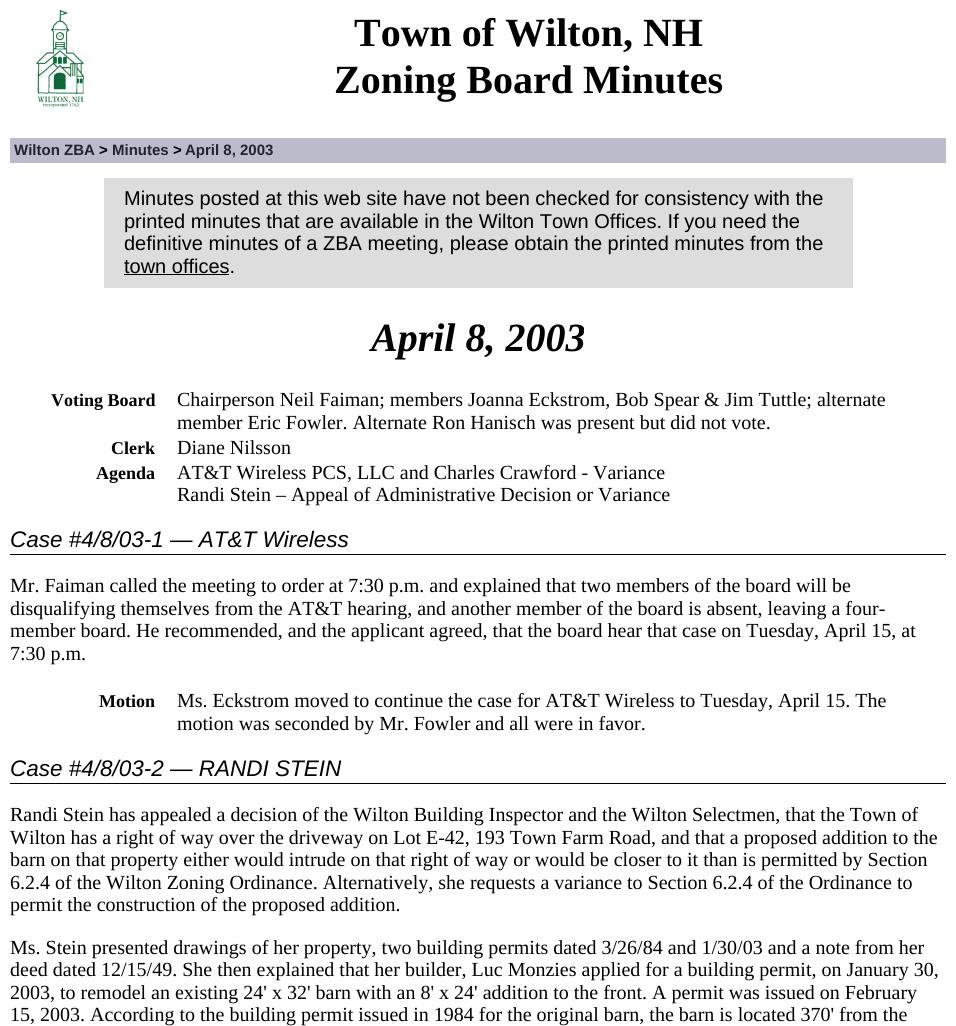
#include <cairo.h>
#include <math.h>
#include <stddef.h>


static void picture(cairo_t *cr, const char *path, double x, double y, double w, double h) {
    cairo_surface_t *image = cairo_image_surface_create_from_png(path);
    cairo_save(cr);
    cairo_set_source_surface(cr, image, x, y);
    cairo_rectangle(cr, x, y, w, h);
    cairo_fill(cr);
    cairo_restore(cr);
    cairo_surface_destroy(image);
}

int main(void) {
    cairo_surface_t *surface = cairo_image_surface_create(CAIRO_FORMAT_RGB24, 956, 1026);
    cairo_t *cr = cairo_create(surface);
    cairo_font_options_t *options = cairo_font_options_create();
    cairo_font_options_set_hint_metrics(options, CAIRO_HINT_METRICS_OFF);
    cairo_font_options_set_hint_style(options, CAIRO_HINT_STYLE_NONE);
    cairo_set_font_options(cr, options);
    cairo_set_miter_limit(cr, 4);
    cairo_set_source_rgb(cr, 1, 1, 1);
    cairo_paint(cr);
    picture(cr, "img1.png", 36, 10, 48, 98);
    cairo_select_font_face(cr, "Liberation Serif", CAIRO_FONT_SLANT_NORMAL, CAIRO_FONT_WEIGHT_BOLD);
    cairo_set_font_size(cr, 40);
    cairo_set_source_rgb(cr, 0, 0, 0);
    cairo_move_to(cr, 354, 46);
    cairo_show_text(cr, "Town of Wilton, NH");
    cairo_move_to(cr, 334, 93);
    cairo_show_text(cr, "Zoning Board Minutes");
    cairo_set_source_rgb(cr, 0.733, 0.733, 0.8);
    cairo_rectangle(cr, 10, 138, 936, 25);
    cairo_fill(cr);
    cairo_select_font_face(cr, "Liberation Sans", CAIRO_FONT_SLANT_NORMAL, CAIRO_FONT_WEIGHT_BOLD);
    cairo_set_font_size(cr, 15);
    cairo_set_source_rgb(cr, 0.133, 0.133, 0.2);
    cairo_move_to(cr, 14, 155);
    cairo_show_text(cr, "Wilton ZBA");
    cairo_set_source_rgb(cr, 0, 0, 0);
    cairo_move_to(cr, 99, 155);
    cairo_show_text(cr, ">");
    cairo_set_source_rgb(cr, 0.133, 0.133, 0.2);
    cairo_move_to(cr, 112, 155);
    cairo_show_text(cr, "Minutes");
    cairo_set_source_rgb(cr, 0, 0, 0);
    cairo_move_to(cr, 173, 155);
    cairo_show_text(cr, ">");
    cairo_set_source_rgb(cr, 0.133, 0.133, 0.2);
    cairo_move_to(cr, 185, 155);
    cairo_show_text(cr, "April 8, 2003");
    cairo_set_source_rgb(cr, 0.867, 0.867, 0.867);
    cairo_rectangle(cr, 104, 178, 749, 110);
    cairo_fill(cr);
    cairo_select_font_face(cr, "Liberation Sans", CAIRO_FONT_SLANT_NORMAL, CAIRO_FONT_WEIGHT_NORMAL);
    cairo_set_font_size(cr, 20);
    cairo_set_source_rgb(cr, 0, 0, 0);
    cairo_move_to(cr, 124, 205);
    cairo_show_text(cr, "Minutes posted at this web site have not been checked for consistency with the");
    cairo_move_to(cr, 124, 228);
    cairo_show_text(cr, "printed minutes that are available in the Wilton Town Offices. If you need the");
    cairo_move_to(cr, 124, 250);
    cairo_show_text(cr, "definitive minutes of a ZBA meeting, please obtain the printed minutes from the");
    cairo_move_to(cr, 124, 273);
    cairo_show_text(cr, "town offices.");
    cairo_rectangle(cr, 124, 274, 105, 1);
    cairo_fill(cr);
    cairo_select_font_face(cr, "Liberation Serif", CAIRO_FONT_SLANT_ITALIC, CAIRO_FONT_WEIGHT_BOLD);
    cairo_set_font_size(cr, 40);
    cairo_move_to(cr, 371, 351);
    cairo_show_text(cr, "April 8, 2003");
    cairo_select_font_face(cr, "Liberation Serif", CAIRO_FONT_SLANT_NORMAL, CAIRO_FONT_WEIGHT_BOLD);
    cairo_set_font_size(cr, 18);
    cairo_move_to(cr, 51, 406);
    cairo_show_text(cr, "Voting Board");
    cairo_select_font_face(cr, "Liberation Serif", CAIRO_FONT_SLANT_NORMAL, CAIRO_FONT_WEIGHT_NORMAL);
    cairo_set_font_size(cr, 20);
    cairo_move_to(cr, 177, 406);
    cairo_show_text(cr, "Chairperson Neil Faiman; members Joanna Eckstrom, Bob Spear & Jim Tuttle; alternate");
    cairo_move_to(cr, 177, 429);
    cairo_show_text(cr, "member Eric Fowler. Alternate Ron Hanisch was present but did not vote.");
    cairo_select_font_face(cr, "Liberation Serif", CAIRO_FONT_SLANT_NORMAL, CAIRO_FONT_WEIGHT_BOLD);
    cairo_set_font_size(cr, 18);
    cairo_move_to(cr, 111, 454);
    cairo_show_text(cr, "Clerk");
    cairo_select_font_face(cr, "Liberation Serif", CAIRO_FONT_SLANT_NORMAL, CAIRO_FONT_WEIGHT_NORMAL);
    cairo_set_font_size(cr, 20);
    cairo_move_to(cr, 177, 454);
    cairo_show_text(cr, "Diane Nilsson");
    cairo_select_font_face(cr, "Liberation Serif", CAIRO_FONT_SLANT_NORMAL, CAIRO_FONT_WEIGHT_BOLD);
    cairo_set_font_size(cr, 18);
    cairo_move_to(cr, 96, 479);
    cairo_show_text(cr, "Agenda");
    cairo_select_font_face(cr, "Liberation Serif", CAIRO_FONT_SLANT_NORMAL, CAIRO_FONT_WEIGHT_NORMAL);
    cairo_set_font_size(cr, 20);
    cairo_move_to(cr, 177, 479);
    cairo_show_text(cr, "AT&T Wireless PCS, LLC and Charles Crawford - Variance");
    cairo_move_to(cr, 177, 501);
    cairo_show_text(cr, "Randi Stein – Appeal of Administrative Decision or Variance");
    cairo_rectangle(cr, 10, 554, 936, 1);
    cairo_fill(cr);
    cairo_select_font_face(cr, "Liberation Sans", CAIRO_FONT_SLANT_ITALIC, CAIRO_FONT_WEIGHT_NORMAL);
    cairo_set_font_size(cr, 22.5);
    cairo_move_to(cr, 10, 547);
    cairo_show_text(cr, "Case #4/8/03-1 — AT&T Wireless");
    cairo_select_font_face(cr, "Liberation Serif", CAIRO_FONT_SLANT_NORMAL, CAIRO_FONT_WEIGHT_NORMAL);
    cairo_set_font_size(cr, 20);
    cairo_move_to(cr, 10, 592);
    cairo_show_text(cr, "Mr. Faiman called the meeting to order at 7:30 p.m. and explained that two members of the board will be");
    cairo_move_to(cr, 10, 615);
    cairo_show_text(cr, "disqualifying themselves from the AT&T hearing, and another member of the board is absent, leaving a four-");
    cairo_move_to(cr, 10, 637);
    cairo_show_text(cr, "member board. He recommended, and the applicant agreed, that the board hear that case on Tuesday, April 15, at");
    cairo_move_to(cr, 10, 660);
    cairo_show_text(cr, "7:30 p.m.");
    cairo_select_font_face(cr, "Liberation Serif", CAIRO_FONT_SLANT_NORMAL, CAIRO_FONT_WEIGHT_BOLD);
    cairo_set_font_size(cr, 18);
    cairo_move_to(cr, 99, 707);
    cairo_show_text(cr, "Motion");
    cairo_select_font_face(cr, "Liberation Serif", CAIRO_FONT_SLANT_NORMAL, CAIRO_FONT_WEIGHT_NORMAL);
    cairo_set_font_size(cr, 20);
    cairo_move_to(cr, 177, 707);
    cairo_show_text(cr, "Ms. Eckstrom moved to continue the case for AT&T Wireless to Tuesday, April 15. The");
    cairo_move_to(cr, 177, 730);
    cairo_show_text(cr, "motion was seconded by Mr. Fowler and all were in favor.");
    cairo_rectangle(cr, 10, 783, 936, 1);
    cairo_fill(cr);
    cairo_select_font_face(cr, "Liberation Sans", CAIRO_FONT_SLANT_ITALIC, CAIRO_FONT_WEIGHT_NORMAL);
    cairo_set_font_size(cr, 22.5);
    cairo_move_to(cr, 10, 776);
    cairo_show_text(cr, "Case #4/8/03-2 — RANDI STEIN");
    cairo_select_font_face(cr, "Liberation Serif", CAIRO_FONT_SLANT_NORMAL, CAIRO_FONT_WEIGHT_NORMAL);
    cairo_set_font_size(cr, 20);
    cairo_move_to(cr, 10, 821);
    cairo_show_text(cr, "Randi Stein has appealed a decision of the Wilton Building Inspector and the Wilton Selectmen, that the Town of");
    cairo_move_to(cr, 10, 844);
    cairo_show_text(cr, "Wilton has a right of way over the driveway on Lot E-42, 193 Town Farm Road, and that a proposed addition to the");
    cairo_move_to(cr, 10, 866);
    cairo_show_text(cr, "barn on that property either would intrude on that right of way or would be closer to it than is permitted by Section");
    cairo_move_to(cr, 10, 889);
    cairo_show_text(cr, "6.2.4 of the Wilton Zoning Ordinance. Alternatively, she requests a variance to Section 6.2.4 of the Ordinance to");
    cairo_move_to(cr, 10, 911);
    cairo_show_text(cr, "permit the construction of the proposed addition.");
    cairo_move_to(cr, 10, 954);
    cairo_show_text(cr, "Ms. Stein presented drawings of her property, two building permits dated 3/26/84 and 1/30/03 and a note from her");
    cairo_move_to(cr, 10, 976);
    cairo_show_text(cr, "deed dated 12/15/49. She then explained that her builder, Luc Monzies applied for a building permit, on January 30,");
    cairo_move_to(cr, 10, 999);
    cairo_show_text(cr, "2003, to remodel an existing 24' x 32' barn with an 8' x 24' addition to the front. A permit was issued on February");
    cairo_move_to(cr, 10, 1021);
    cairo_show_text(cr, "15, 2003. According to the building permit issued in 1984 for the original barn, the barn is located 370' from the");
    cairo_surface_write_to_png(surface, "page.png");
    cairo_font_options_destroy(options);
    cairo_destroy(cr);
    cairo_surface_destroy(surface);
    return 0;
}
